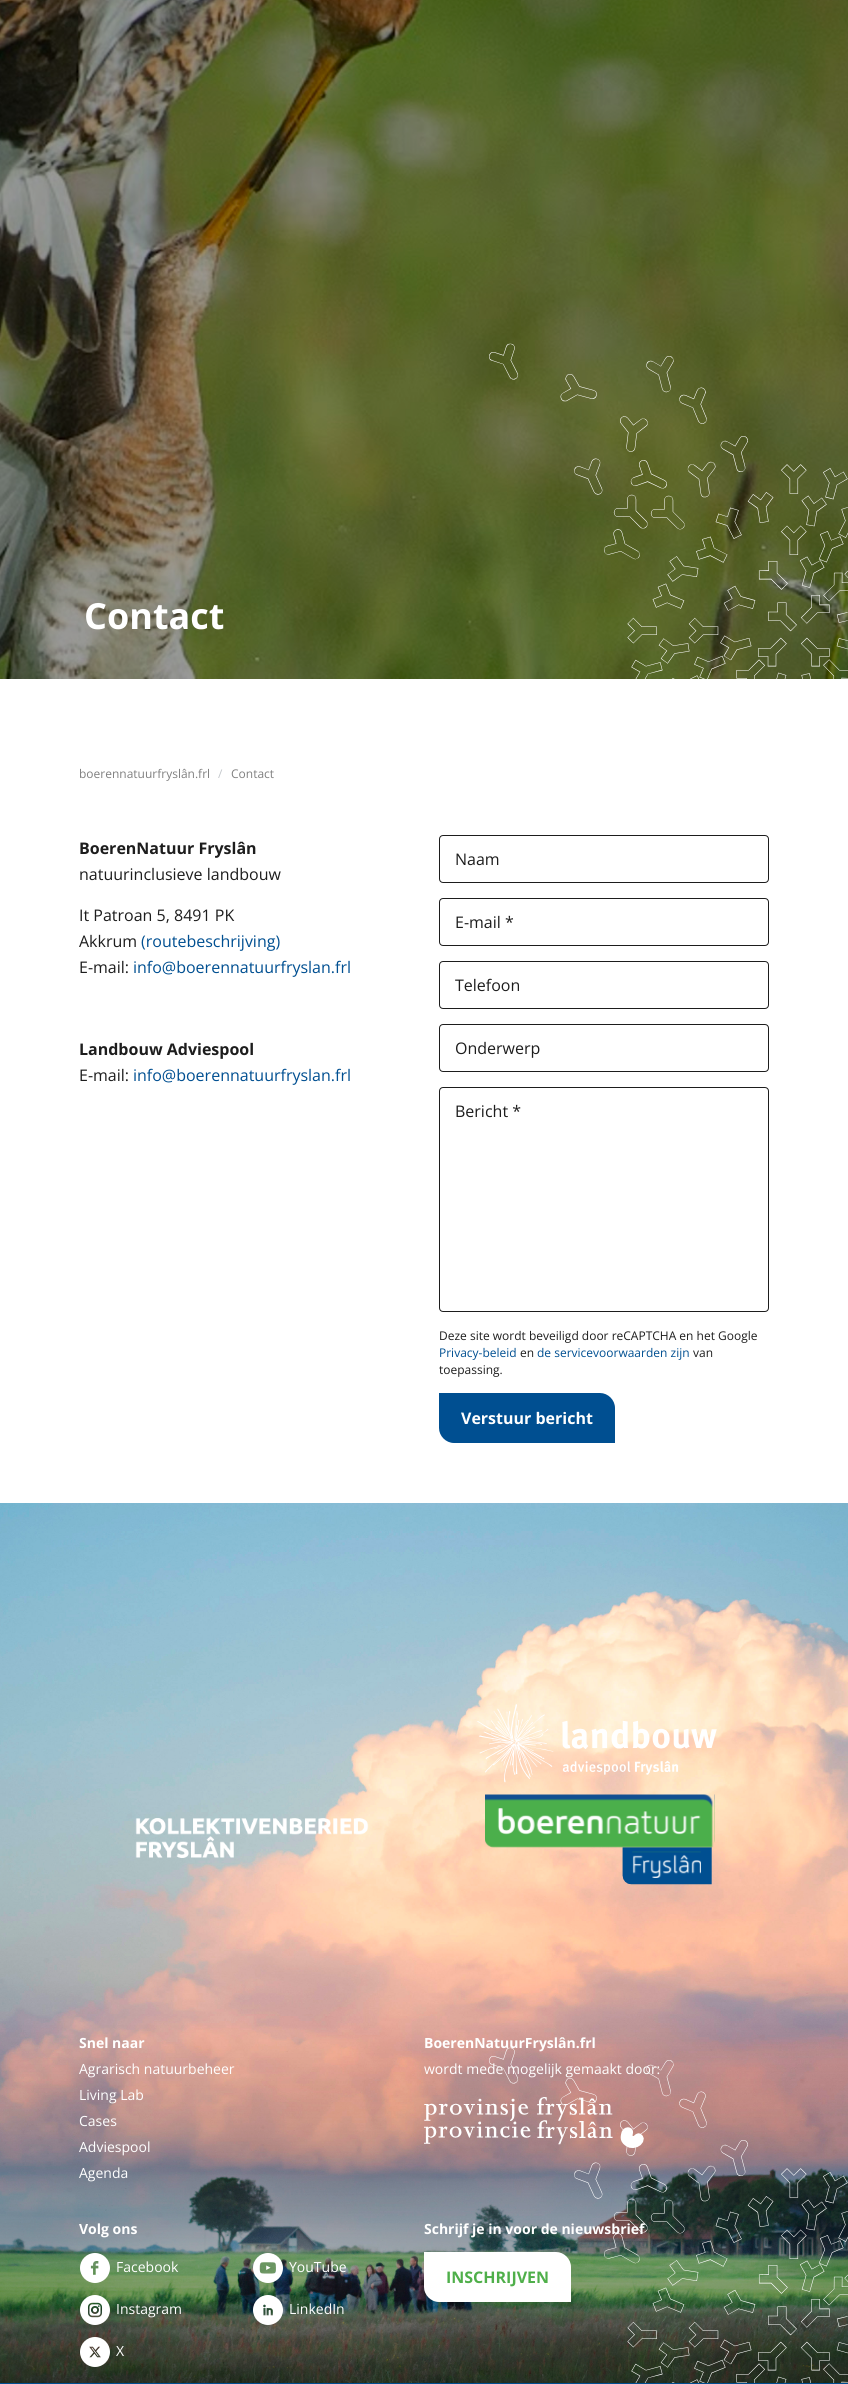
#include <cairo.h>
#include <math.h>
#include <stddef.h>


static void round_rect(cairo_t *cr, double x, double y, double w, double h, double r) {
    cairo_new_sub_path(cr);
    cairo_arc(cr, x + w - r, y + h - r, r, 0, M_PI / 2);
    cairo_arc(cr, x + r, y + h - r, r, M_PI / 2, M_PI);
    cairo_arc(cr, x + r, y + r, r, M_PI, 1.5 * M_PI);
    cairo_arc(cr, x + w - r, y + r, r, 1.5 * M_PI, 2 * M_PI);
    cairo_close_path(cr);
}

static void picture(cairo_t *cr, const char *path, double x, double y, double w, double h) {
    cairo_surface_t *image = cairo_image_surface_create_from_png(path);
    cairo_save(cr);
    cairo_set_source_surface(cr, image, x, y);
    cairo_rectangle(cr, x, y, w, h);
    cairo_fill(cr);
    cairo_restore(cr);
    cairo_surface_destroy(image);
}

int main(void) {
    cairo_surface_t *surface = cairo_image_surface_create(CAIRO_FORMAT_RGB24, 848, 2384);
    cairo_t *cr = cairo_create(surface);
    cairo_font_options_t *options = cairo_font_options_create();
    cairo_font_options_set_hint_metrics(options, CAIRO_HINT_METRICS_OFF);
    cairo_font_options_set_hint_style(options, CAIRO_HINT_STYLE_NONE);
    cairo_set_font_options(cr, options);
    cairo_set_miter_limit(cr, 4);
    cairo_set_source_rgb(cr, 1, 1, 1);
    cairo_paint(cr);
    picture(cr, "img1.png", 0, 0, 848, 679);
    cairo_select_font_face(cr, "Open Sans", CAIRO_FONT_SLANT_NORMAL, CAIRO_FONT_WEIGHT_BOLD);
    cairo_set_font_size(cr, 36);
    cairo_set_source_rgb(cr, 1, 1, 1);
    cairo_move_to(cr, 84, 629);
    cairo_show_text(cr, "Contact");
    picture(cr, "img2.png", 489, 343, 359, 336);
    cairo_select_font_face(cr, "Open Sans", CAIRO_FONT_SLANT_NORMAL, CAIRO_FONT_WEIGHT_NORMAL);
    cairo_set_font_size(cr, 12);
    cairo_set_source_rgb(cr, 0.502, 0.502, 0.502);
    cairo_move_to(cr, 79, 778);
    cairo_show_text(cr, "boerennatuurfryslân.frl");
    cairo_set_source_rgb(cr, 0.765, 0.78, 0.796);
    cairo_move_to(cr, 218, 778);
    cairo_show_text(cr, "/");
    cairo_set_source_rgb(cr, 0.502, 0.502, 0.502);
    cairo_move_to(cr, 231, 778);
    cairo_show_text(cr, "Contact");
    cairo_select_font_face(cr, "Open Sans", CAIRO_FONT_SLANT_NORMAL, CAIRO_FONT_WEIGHT_BOLD);
    cairo_set_font_size(cr, 16);
    cairo_set_source_rgb(cr, 0.114, 0.114, 0.114);
    cairo_move_to(cr, 79, 854);
    cairo_show_text(cr, "BoerenNatuur Fryslân");
    cairo_select_font_face(cr, "Open Sans", CAIRO_FONT_SLANT_NORMAL, CAIRO_FONT_WEIGHT_NORMAL);
    cairo_move_to(cr, 79, 880);
    cairo_show_text(cr, "natuurinclusieve landbouw");
    cairo_move_to(cr, 79, 921);
    cairo_show_text(cr, "It Patroan 5, 8491 PK");
    cairo_move_to(cr, 79, 947);
    cairo_show_text(cr, "Akkrum");
    cairo_set_source_rgb(cr, 0, 0.31, 0.569);
    cairo_move_to(cr, 141, 947);
    cairo_show_text(cr, "(routebeschrijving)");
    cairo_set_source_rgb(cr, 0.114, 0.114, 0.114);
    cairo_move_to(cr, 79, 973);
    cairo_show_text(cr, "E-mail:");
    cairo_set_source_rgb(cr, 0, 0.31, 0.569);
    cairo_move_to(cr, 133, 973);
    cairo_show_text(cr, "info@boerennatuurfryslan.frl");
    cairo_select_font_face(cr, "Open Sans", CAIRO_FONT_SLANT_NORMAL, CAIRO_FONT_WEIGHT_BOLD);
    cairo_set_source_rgb(cr, 0.114, 0.114, 0.114);
    cairo_move_to(cr, 79, 1055);
    cairo_show_text(cr, "Landbouw Adviespool");
    cairo_select_font_face(cr, "Open Sans", CAIRO_FONT_SLANT_NORMAL, CAIRO_FONT_WEIGHT_NORMAL);
    cairo_move_to(cr, 79, 1081);
    cairo_show_text(cr, "E-mail:");
    cairo_set_source_rgb(cr, 0, 0.31, 0.569);
    cairo_move_to(cr, 133, 1081);
    cairo_show_text(cr, "info@boerennatuurfryslan.frl");
    round_rect(cr, 439.5, 835.5, 329, 47, 3.5);
    cairo_set_source_rgb(cr, 0.114, 0.114, 0.114);
    cairo_set_line_width(cr, 1);
    cairo_stroke(cr);
    cairo_move_to(cr, 455, 865);
    cairo_show_text(cr, "Naam");
    round_rect(cr, 439.5, 898.5, 329, 47, 3.5);
    cairo_stroke(cr);
    cairo_move_to(cr, 455, 928);
    cairo_show_text(cr, "E-mail *");
    round_rect(cr, 439.5, 961.5, 329, 47, 3.5);
    cairo_stroke(cr);
    cairo_move_to(cr, 455, 991);
    cairo_show_text(cr, "Telefoon");
    round_rect(cr, 439.5, 1024.5, 329, 47, 3.5);
    cairo_stroke(cr);
    cairo_move_to(cr, 455, 1054);
    cairo_show_text(cr, "Onderwerp");
    round_rect(cr, 439.5, 1087.5, 329, 224, 3.5);
    cairo_stroke(cr);
    cairo_move_to(cr, 455, 1117);
    cairo_show_text(cr, "Bericht *");
    cairo_set_font_size(cr, 12);
    cairo_move_to(cr, 439, 1340);
    cairo_show_text(cr, "Deze site wordt beveiligd door reCAPTCHA en het Google");
    cairo_set_source_rgb(cr, 0, 0.31, 0.569);
    cairo_move_to(cr, 439, 1357);
    cairo_show_text(cr, "Privacy-beleid");
    cairo_set_source_rgb(cr, 0.114, 0.114, 0.114);
    cairo_move_to(cr, 520, 1357);
    cairo_show_text(cr, "en");
    cairo_set_source_rgb(cr, 0, 0.31, 0.569);
    cairo_move_to(cr, 537, 1357);
    cairo_show_text(cr, "de servicevoorwaarden zijn");
    cairo_set_source_rgb(cr, 0.114, 0.114, 0.114);
    cairo_move_to(cr, 693, 1357);
    cairo_show_text(cr, "van");
    cairo_move_to(cr, 439, 1374);
    cairo_show_text(cr, "toepassing.");
    cairo_set_source_rgb(cr, 0, 0.31, 0.569);
    cairo_new_path(cr);
    cairo_move_to(cr, 440, 1394);
    cairo_line_to(cr, 600, 1394);
    cairo_curve_to(cr, 607.5, 1394, 614, 1400.5, 614, 1408);
    cairo_line_to(cr, 614, 1442);
    cairo_line_to(cr, 454, 1442);
    cairo_curve_to(cr, 446.5, 1442, 440, 1435.5, 440, 1428);
    cairo_close_path(cr);
    cairo_fill_preserve(cr);
    cairo_set_line_width(cr, 2);
    cairo_stroke(cr);
    cairo_select_font_face(cr, "Open Sans", CAIRO_FONT_SLANT_NORMAL, CAIRO_FONT_WEIGHT_BOLD);
    cairo_set_font_size(cr, 16);
    cairo_set_source_rgb(cr, 1, 1, 1);
    cairo_move_to(cr, 461, 1424);
    cairo_show_text(cr, "Verstuur bericht");
    picture(cr, "img3.png", 0, 1503, 848, 880);
    picture(cr, "img4.png", 477, 1704, 240, 79);
    picture(cr, "img5.png", 135, 1818, 234, 40);
    picture(cr, "img6.png", 485, 1794, 230, 91);
    cairo_set_font_size(cr, 14);
    cairo_move_to(cr, 79, 2048);
    cairo_show_text(cr, "Snel naar");
    cairo_select_font_face(cr, "Open Sans", CAIRO_FONT_SLANT_NORMAL, CAIRO_FONT_WEIGHT_NORMAL);
    cairo_move_to(cr, 79, 2074);
    cairo_show_text(cr, "Agrarisch natuurbeheer");
    cairo_move_to(cr, 79, 2100);
    cairo_show_text(cr, "Living Lab");
    cairo_move_to(cr, 79, 2126);
    cairo_show_text(cr, "Cases");
    cairo_move_to(cr, 79, 2152);
    cairo_show_text(cr, "Adviespool");
    cairo_move_to(cr, 79, 2178);
    cairo_show_text(cr, "Agenda");
    picture(cr, "img13.png", 489, 2047, 359, 336);
    cairo_select_font_face(cr, "Open Sans", CAIRO_FONT_SLANT_NORMAL, CAIRO_FONT_WEIGHT_BOLD);
    cairo_move_to(cr, 424, 2048);
    cairo_show_text(cr, "BoerenNatuurFryslân.frl");
    cairo_select_font_face(cr, "Open Sans", CAIRO_FONT_SLANT_NORMAL, CAIRO_FONT_WEIGHT_NORMAL);
    cairo_move_to(cr, 424, 2074);
    cairo_show_text(cr, "wordt mede mogelijk gemaakt door:");
    picture(cr, "img7.png", 424, 2097, 220, 51);
    cairo_select_font_face(cr, "Open Sans", CAIRO_FONT_SLANT_NORMAL, CAIRO_FONT_WEIGHT_BOLD);
    cairo_move_to(cr, 79, 2234);
    cairo_show_text(cr, "Volg ons");
    picture(cr, "img8.png", 80, 2253, 30, 30);
    cairo_select_font_face(cr, "Open Sans", CAIRO_FONT_SLANT_NORMAL, CAIRO_FONT_WEIGHT_NORMAL);
    cairo_move_to(cr, 116, 2272);
    cairo_show_text(cr, "Facebook");
    picture(cr, "img9.png", 253, 2253, 30, 30);
    cairo_move_to(cr, 289, 2272);
    cairo_show_text(cr, "YouTube");
    picture(cr, "img10.png", 80, 2295, 30, 30);
    cairo_move_to(cr, 116, 2314);
    cairo_show_text(cr, "Instagram");
    picture(cr, "img11.png", 253, 2295, 30, 30);
    cairo_move_to(cr, 289, 2314);
    cairo_show_text(cr, "LinkedIn");
    picture(cr, "img12.png", 80, 2337, 30, 30);
    cairo_move_to(cr, 116, 2356);
    cairo_show_text(cr, "X");
    cairo_select_font_face(cr, "Open Sans", CAIRO_FONT_SLANT_NORMAL, CAIRO_FONT_WEIGHT_BOLD);
    cairo_move_to(cr, 424, 2234);
    cairo_show_text(cr, "Schrijf je in voor de nieuwsbrief");
    cairo_new_path(cr);
    cairo_move_to(cr, 425, 2253);
    cairo_line_to(cr, 556, 2253);
    cairo_curve_to(cr, 563.5, 2253, 570, 2259.5, 570, 2267);
    cairo_line_to(cr, 570, 2301);
    cairo_line_to(cr, 439, 2301);
    cairo_curve_to(cr, 431.5, 2301, 425, 2294.5, 425, 2287);
    cairo_close_path(cr);
    cairo_fill_preserve(cr);
    cairo_stroke(cr);
    cairo_set_font_size(cr, 16);
    cairo_set_source_rgb(cr, 0.31, 0.686, 0.29);
    cairo_move_to(cr, 446, 2283);
    cairo_show_text(cr, "INSCHRIJVEN");
    cairo_set_source_rgb(cr, 0, 0.31, 0.569);
    cairo_rectangle(cr, 0, 2383, 848, 1);
    cairo_fill(cr);
    cairo_surface_write_to_png(surface, "page.png");
    cairo_font_options_destroy(options);
    cairo_destroy(cr);
    cairo_surface_destroy(surface);
    return 0;
}
